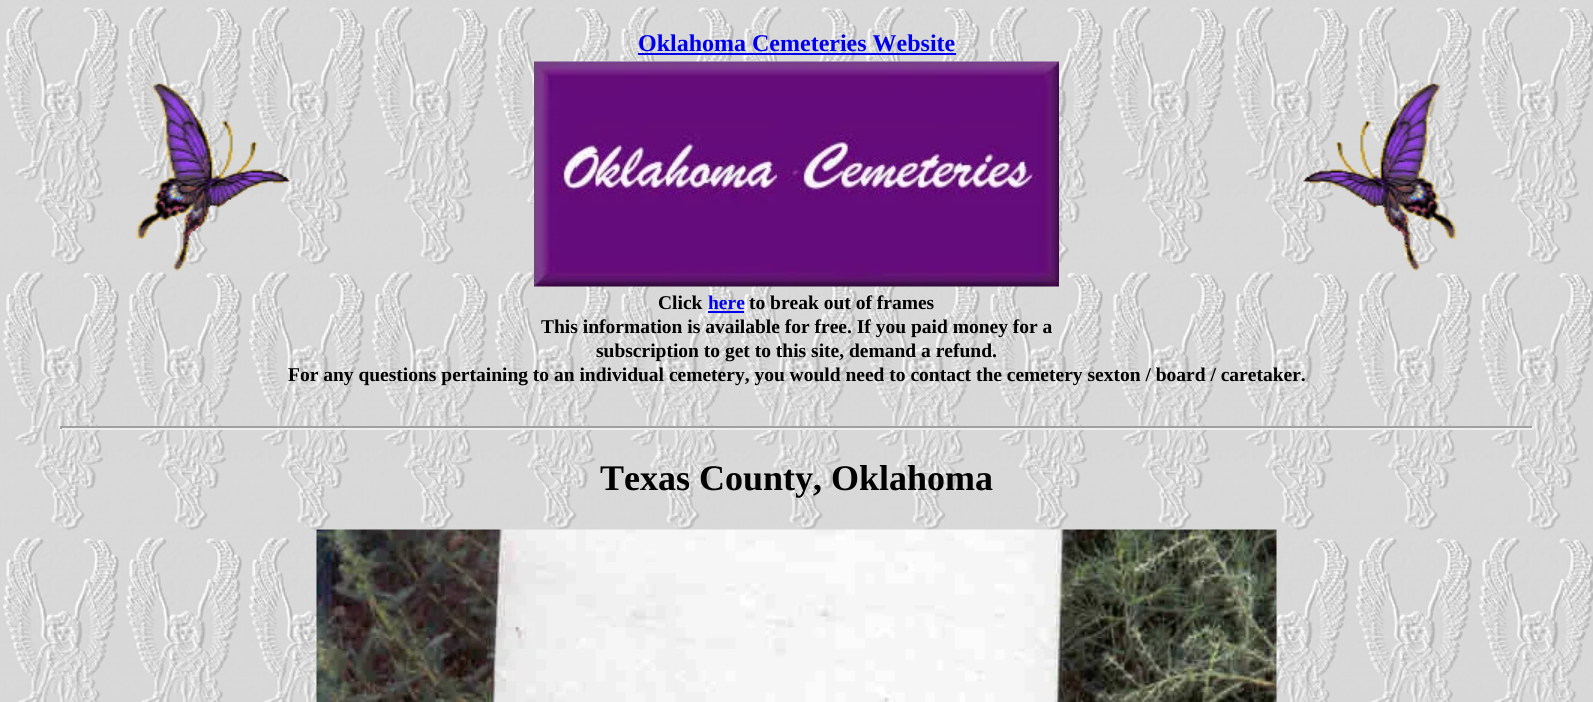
#include <cairo.h>
#include <math.h>
#include <stddef.h>


static void picture(cairo_t *cr, const char *path, double x, double y, double w, double h) {
    cairo_surface_t *image = cairo_image_surface_create_from_png(path);
    cairo_save(cr);
    cairo_set_source_surface(cr, image, x, y);
    cairo_rectangle(cr, x, y, w, h);
    cairo_fill(cr);
    cairo_restore(cr);
    cairo_surface_destroy(image);
}

int main(void) {
    cairo_surface_t *surface = cairo_image_surface_create(CAIRO_FORMAT_RGB24, 1593, 702);
    cairo_t *cr = cairo_create(surface);
    cairo_font_options_t *options = cairo_font_options_create();
    cairo_font_options_set_hint_metrics(options, CAIRO_HINT_METRICS_OFF);
    cairo_font_options_set_hint_style(options, CAIRO_HINT_STYLE_NONE);
    cairo_set_font_options(cr, options);
    cairo_set_miter_limit(cr, 4);
    cairo_set_source_rgb(cr, 1, 1, 1);
    cairo_paint(cr);
    picture(cr, "img1.png", 0, 0, 1593, 702);
    cairo_select_font_face(cr, "Liberation Serif", CAIRO_FONT_SLANT_NORMAL, CAIRO_FONT_WEIGHT_BOLD);
    cairo_set_font_size(cr, 24);
    cairo_set_source_rgb(cr, 0, 0, 0.933);
    cairo_move_to(cr, 638, 51);
    cairo_show_text(cr, "Oklahoma Cemeteries Website");
    cairo_rectangle(cr, 638, 53, 318, 2);
    cairo_fill(cr);
    picture(cr, "img2.png", 136, 83, 154, 188);
    picture(cr, "img3.png", 534, 61, 525, 226);
    picture(cr, "img4.png", 1303, 83, 154, 188);
    cairo_set_font_size(cr, 19.5);
    cairo_set_source_rgb(cr, 0, 0, 0);
    cairo_move_to(cr, 658, 309);
    cairo_show_text(cr, "Click");
    cairo_set_source_rgb(cr, 0, 0, 0.933);
    cairo_move_to(cr, 708, 309);
    cairo_show_text(cr, "here");
    cairo_rectangle(cr, 708, 311, 36, 2);
    cairo_fill(cr);
    cairo_set_source_rgb(cr, 0, 0, 0);
    cairo_move_to(cr, 749, 309);
    cairo_show_text(cr, "to break out of frames");
    cairo_move_to(cr, 541, 333);
    cairo_show_text(cr, "This information is available for free. If you paid money for a");
    cairo_move_to(cr, 596, 357);
    cairo_show_text(cr, "subscription to get to this site, demand a refund.");
    cairo_move_to(cr, 288, 381);
    cairo_show_text(cr, "For any questions pertaining to an individual cemetery, you would need to contact the cemetery sexton / board / caretaker.");
    cairo_set_source_rgb(cr, 0.624, 0.624, 0.624);
    cairo_rectangle(cr, 60, 426, 1473, 2);
    cairo_fill(cr);
    cairo_set_source_rgb(cr, 0.933, 0.933, 0.933);
    cairo_rectangle(cr, 1532, 426, 2, 3);
    cairo_fill(cr);
    cairo_rectangle(cr, 60, 428, 1473, 2);
    cairo_fill(cr);
    cairo_set_source_rgb(cr, 0.624, 0.624, 0.624);
    cairo_rectangle(cr, 60, 426, 2, 3);
    cairo_fill(cr);
    cairo_set_font_size(cr, 36);
    cairo_set_source_rgb(cr, 0, 0, 0);
    cairo_move_to(cr, 600, 490);
    cairo_show_text(cr, "Texas County, Oklahoma");
    picture(cr, "img5.png", 316, 529, 961, 173);
    cairo_surface_write_to_png(surface, "page.png");
    cairo_font_options_destroy(options);
    cairo_destroy(cr);
    cairo_surface_destroy(surface);
    return 0;
}
